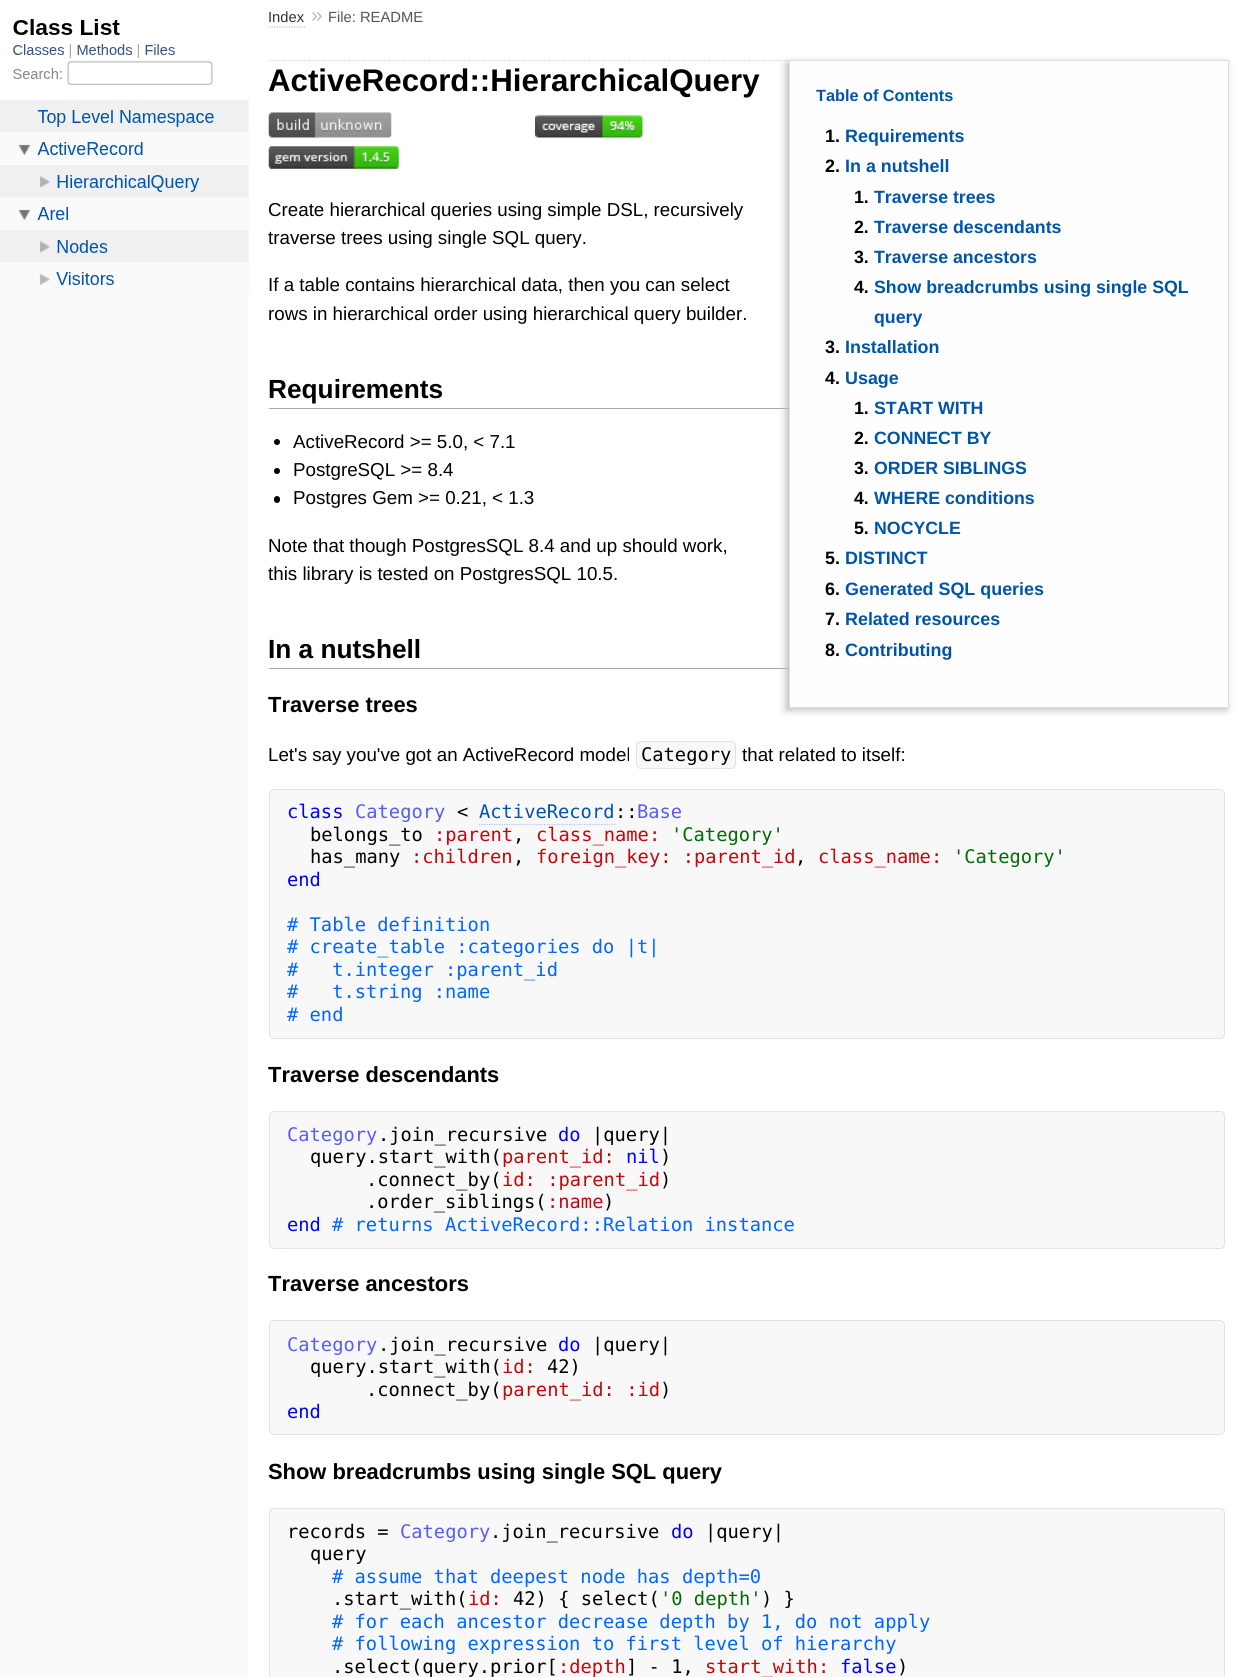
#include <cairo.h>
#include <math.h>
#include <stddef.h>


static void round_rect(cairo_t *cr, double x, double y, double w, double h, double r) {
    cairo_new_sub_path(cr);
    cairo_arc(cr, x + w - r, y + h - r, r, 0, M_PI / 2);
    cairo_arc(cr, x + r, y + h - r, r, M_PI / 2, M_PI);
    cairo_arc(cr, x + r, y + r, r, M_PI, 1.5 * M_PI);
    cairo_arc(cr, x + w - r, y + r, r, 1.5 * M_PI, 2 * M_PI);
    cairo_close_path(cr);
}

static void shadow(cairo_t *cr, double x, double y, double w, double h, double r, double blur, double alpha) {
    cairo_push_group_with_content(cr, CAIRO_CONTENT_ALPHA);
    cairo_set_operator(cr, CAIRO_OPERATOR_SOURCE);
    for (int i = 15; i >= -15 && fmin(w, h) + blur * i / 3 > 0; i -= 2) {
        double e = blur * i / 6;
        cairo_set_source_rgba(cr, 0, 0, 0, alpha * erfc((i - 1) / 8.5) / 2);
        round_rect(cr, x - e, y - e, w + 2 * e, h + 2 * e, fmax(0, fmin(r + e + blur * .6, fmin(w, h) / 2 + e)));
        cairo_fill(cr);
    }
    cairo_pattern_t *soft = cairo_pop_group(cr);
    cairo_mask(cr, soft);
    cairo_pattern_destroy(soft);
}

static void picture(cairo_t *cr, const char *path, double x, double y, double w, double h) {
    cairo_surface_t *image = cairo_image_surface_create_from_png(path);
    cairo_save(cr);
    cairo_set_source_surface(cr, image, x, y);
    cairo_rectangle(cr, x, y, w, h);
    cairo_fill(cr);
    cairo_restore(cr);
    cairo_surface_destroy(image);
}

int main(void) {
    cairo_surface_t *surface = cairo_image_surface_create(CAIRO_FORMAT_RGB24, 1244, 1677);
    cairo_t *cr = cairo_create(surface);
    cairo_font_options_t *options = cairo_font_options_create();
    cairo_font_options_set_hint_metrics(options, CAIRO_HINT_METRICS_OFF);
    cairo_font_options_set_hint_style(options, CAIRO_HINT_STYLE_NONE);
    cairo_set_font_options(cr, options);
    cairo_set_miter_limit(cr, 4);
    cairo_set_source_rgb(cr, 1, 1, 1);
    cairo_paint(cr);
    cairo_new_path(cr);
    cairo_move_to(cr, 249.5, 0);
    cairo_line_to(cr, 249.5, 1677.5);
    cairo_set_source_rgb(cr, 0.933, 0.933, 0.933);
    cairo_set_line_width(cr, 1.2);
    cairo_set_dash(cr, (double[]){1.25, 1.25}, 2, 0);
    cairo_stroke(cr);
    picture(cr, "img1.png", 0, 19, 249, 1658);
    cairo_set_source_rgb(cr, 1, 1, 1);
    cairo_rectangle(cr, 249, 0, 1, 1677);
    cairo_fill(cr);
    cairo_select_font_face(cr, "Liberation Sans", CAIRO_FONT_SLANT_NORMAL, CAIRO_FONT_WEIGHT_NORMAL);
    cairo_set_font_size(cr, 14.75);
    cairo_set_source_rgb(cr, 0.2, 0.2, 0.2);
    cairo_move_to(cr, 268, 22);
    cairo_show_text(cr, "Index");
    cairo_new_path(cr);
    cairo_move_to(cr, 269, 27);
    cairo_line_to(cr, 305, 27);
    cairo_set_source_rgb(cr, 0.733, 0.733, 0.867);
    cairo_stroke(cr);
    cairo_set_font_size(cr, 21);
    cairo_set_source_rgb(cr, 0.733, 0.733, 0.733);
    cairo_move_to(cr, 311, 22);
    cairo_show_text(cr, "»");
    cairo_set_font_size(cr, 14.75);
    cairo_set_source_rgb(cr, 0.333, 0.333, 0.333);
    cairo_move_to(cr, 328, 22);
    cairo_show_text(cr, "File: README");
    cairo_new_path(cr);
    cairo_move_to(cr, 269, 60.5);
    cairo_line_to(cr, 1225, 60.5);
    cairo_set_source_rgb(cr, 0.835, 0.835, 0.835);
    cairo_stroke(cr);
    cairo_select_font_face(cr, "Liberation Sans", CAIRO_FONT_SLANT_NORMAL, CAIRO_FONT_WEIGHT_BOLD);
    cairo_set_font_size(cr, 31.25);
    cairo_set_source_rgb(cr, 0, 0, 0);
    cairo_move_to(cr, 268, 91);
    cairo_show_text(cr, "ActiveRecord::HierarchicalQuery");
    picture(cr, "img2.png", 268, 112, 124, 26);
    picture(cr, "img3.png", 535, 115, 108, 23);
    picture(cr, "img4.png", 268, 146, 131, 23);
    cairo_select_font_face(cr, "Liberation Sans", CAIRO_FONT_SLANT_NORMAL, CAIRO_FONT_WEIGHT_NORMAL);
    cairo_set_font_size(cr, 18.75);
    cairo_move_to(cr, 268, 216);
    cairo_show_text(cr, "Create hierarchical queries using simple DSL, recursively");
    cairo_move_to(cr, 268, 244);
    cairo_show_text(cr, "traverse trees using single SQL query.");
    cairo_move_to(cr, 268, 291);
    cairo_show_text(cr, "If a table contains hierarchical data, then you can select");
    cairo_move_to(cr, 268, 320);
    cairo_show_text(cr, "rows in hierarchical order using hierarchical query builder.");
    cairo_set_source_rgb(cr, 0.667, 0.667, 0.667);
    cairo_rectangle(cr, 269, 408, 520, 1);
    cairo_fill(cr);
    cairo_select_font_face(cr, "Liberation Sans", CAIRO_FONT_SLANT_NORMAL, CAIRO_FONT_WEIGHT_BOLD);
    cairo_set_font_size(cr, 26.25);
    cairo_set_source_rgb(cr, 0, 0, 0);
    cairo_move_to(cr, 268, 398);
    cairo_show_text(cr, "Requirements");
    cairo_new_path(cr);
    cairo_arc(cr, 277, 442, 3, 0, 2 * M_PI);
    cairo_fill(cr);
    cairo_select_font_face(cr, "Liberation Sans", CAIRO_FONT_SLANT_NORMAL, CAIRO_FONT_WEIGHT_NORMAL);
    cairo_set_font_size(cr, 18.75);
    cairo_move_to(cr, 293, 448);
    cairo_show_text(cr, "ActiveRecord >= 5.0, < 7.1");
    cairo_new_path(cr);
    cairo_arc(cr, 277, 471, 3, 0, 2 * M_PI);
    cairo_fill(cr);
    cairo_move_to(cr, 293, 476);
    cairo_show_text(cr, "PostgreSQL >= 8.4");
    round_rect(cr, 274, 496, 6, 7, 3);
    cairo_fill(cr);
    cairo_move_to(cr, 293, 504);
    cairo_show_text(cr, "Postgres Gem >= 0.21, < 1.3");
    cairo_move_to(cr, 268, 552);
    cairo_show_text(cr, "Note that though PostgresSQL 8.4 and up should work,");
    cairo_move_to(cr, 268, 580);
    cairo_show_text(cr, "this library is tested on PostgresSQL 10.5.");
    cairo_set_source_rgb(cr, 0.667, 0.667, 0.667);
    cairo_rectangle(cr, 269, 668, 520, 1);
    cairo_fill(cr);
    cairo_select_font_face(cr, "Liberation Sans", CAIRO_FONT_SLANT_NORMAL, CAIRO_FONT_WEIGHT_BOLD);
    cairo_set_font_size(cr, 26.25);
    cairo_set_source_rgb(cr, 0, 0, 0);
    cairo_move_to(cr, 268, 658);
    cairo_show_text(cr, "In a nutshell");
    cairo_set_font_size(cr, 21.9);
    cairo_move_to(cr, 268, 712);
    cairo_show_text(cr, "Traverse trees");
    cairo_select_font_face(cr, "Liberation Sans", CAIRO_FONT_SLANT_NORMAL, CAIRO_FONT_WEIGHT_NORMAL);
    cairo_set_font_size(cr, 18.75);
    cairo_move_to(cr, 268, 761);
    cairo_show_text(cr, "Let's say you've got an ActiveRecord model");
    cairo_set_source_rgb(cr, 0.969, 0.969, 0.976);
    round_rect(cr, 636.5, 741.5, 99, 27, 4.5);
    cairo_fill_preserve(cr);
    cairo_set_source_rgb(cr, 0.882, 0.882, 0.91);
    cairo_set_line_width(cr, 1);
    cairo_set_dash(cr, NULL, 0, 0);
    cairo_stroke(cr);
    cairo_select_font_face(cr, "DejaVu Sans Mono", CAIRO_FONT_SLANT_NORMAL, CAIRO_FONT_WEIGHT_NORMAL);
    cairo_set_source_rgb(cr, 0, 0, 0);
    cairo_move_to(cr, 641, 761);
    cairo_show_text(cr, "Category");
    cairo_select_font_face(cr, "Liberation Sans", CAIRO_FONT_SLANT_NORMAL, CAIRO_FONT_WEIGHT_NORMAL);
    cairo_move_to(cr, 742, 761);
    cairo_show_text(cr, "that related to itself:");
    cairo_set_source_rgb(cr, 0.969, 0.969, 0.976);
    round_rect(cr, 269.5, 789.5, 955, 249, 4.5);
    cairo_fill_preserve(cr);
    cairo_set_source_rgb(cr, 0.882, 0.882, 0.91);
    cairo_stroke(cr);
    cairo_select_font_face(cr, "DejaVu Sans Mono", CAIRO_FONT_SLANT_NORMAL, CAIRO_FONT_WEIGHT_NORMAL);
    cairo_set_source_rgb(cr, 0, 0, 1);
    cairo_move_to(cr, 287, 818);
    cairo_show_text(cr, "class");
    cairo_set_source_rgb(cr, 0.345, 0.361, 0.965);
    cairo_move_to(cr, 355, 818);
    cairo_show_text(cr, "Category");
    cairo_set_source_rgb(cr, 0, 0, 0);
    cairo_move_to(cr, 457, 818);
    cairo_show_text(cr, "<");
    cairo_set_source_rgb(cr, 0, 0.333, 0.667);
    cairo_move_to(cr, 479, 818);
    cairo_show_text(cr, "ActiveRecord");
    cairo_set_source_rgb(cr, 0, 0, 0);
    cairo_move_to(cr, 615, 818);
    cairo_show_text(cr, "::");
    cairo_set_source_rgb(cr, 0.345, 0.361, 0.965);
    cairo_move_to(cr, 637, 818);
    cairo_show_text(cr, "Base");
    cairo_set_source_rgb(cr, 0, 0, 0);
    cairo_move_to(cr, 310, 841);
    cairo_show_text(cr, "belongs_to");
    cairo_set_source_rgb(cr, 0.773, 0.024, 0.043);
    cairo_move_to(cr, 434, 841);
    cairo_show_text(cr, ":parent");
    cairo_new_path(cr);
    cairo_move_to(cr, 479, 824.5);
    cairo_line_to(cr, 615, 824.5);
    cairo_set_source_rgb(cr, 0.733, 0.733, 1);
    cairo_set_line_width(cr, 1.2);
    cairo_set_dash(cr, (double[]){1.25, 1.25}, 2, 0);
    cairo_stroke(cr);
    cairo_set_source_rgb(cr, 0, 0, 0);
    cairo_move_to(cr, 513, 841);
    cairo_show_text(cr, ",");
    cairo_set_source_rgb(cr, 0.773, 0.024, 0.043);
    cairo_move_to(cr, 536, 841);
    cairo_show_text(cr, "class_name:");
    cairo_set_source_rgb(cr, 0.012, 0.416, 0.027);
    cairo_move_to(cr, 671, 841);
    cairo_show_text(cr, "'Category'");
    cairo_set_source_rgb(cr, 0, 0, 0);
    cairo_move_to(cr, 310, 863);
    cairo_show_text(cr, "has_many");
    cairo_set_source_rgb(cr, 0.773, 0.024, 0.043);
    cairo_move_to(cr, 411, 863);
    cairo_show_text(cr, ":children");
    cairo_set_source_rgb(cr, 0, 0, 0);
    cairo_move_to(cr, 513, 863);
    cairo_show_text(cr, ",");
    cairo_set_source_rgb(cr, 0.773, 0.024, 0.043);
    cairo_move_to(cr, 536, 863);
    cairo_show_text(cr, "foreign_key: :parent_id");
    cairo_set_source_rgb(cr, 0, 0, 0);
    cairo_move_to(cr, 795, 863);
    cairo_show_text(cr, ",");
    cairo_set_source_rgb(cr, 0.773, 0.024, 0.043);
    cairo_move_to(cr, 818, 863);
    cairo_show_text(cr, "class_name:");
    cairo_set_source_rgb(cr, 0.012, 0.416, 0.027);
    cairo_move_to(cr, 953, 863);
    cairo_show_text(cr, "'Category'");
    cairo_set_source_rgb(cr, 0, 0, 1);
    cairo_move_to(cr, 287, 886);
    cairo_show_text(cr, "end");
    cairo_set_source_rgb(cr, 0, 0.4, 1);
    cairo_move_to(cr, 287, 931);
    cairo_show_text(cr, "# Table definition");
    cairo_move_to(cr, 287, 953);
    cairo_show_text(cr, "# create_table :categories do |t|");
    cairo_move_to(cr, 287, 976);
    cairo_show_text(cr, "#   t.integer :parent_id");
    cairo_move_to(cr, 287, 998);
    cairo_show_text(cr, "#   t.string :name");
    cairo_move_to(cr, 287, 1021);
    cairo_show_text(cr, "# end");
    cairo_select_font_face(cr, "Liberation Sans", CAIRO_FONT_SLANT_NORMAL, CAIRO_FONT_WEIGHT_BOLD);
    cairo_set_font_size(cr, 21.9);
    cairo_set_source_rgb(cr, 0, 0, 0);
    cairo_move_to(cr, 268, 1082);
    cairo_show_text(cr, "Traverse descendants");
    cairo_set_source_rgb(cr, 0.969, 0.969, 0.976);
    round_rect(cr, 269.5, 1111.5, 955, 137, 4.5);
    cairo_fill_preserve(cr);
    cairo_set_source_rgb(cr, 0.882, 0.882, 0.91);
    cairo_set_line_width(cr, 1);
    cairo_set_dash(cr, NULL, 0, 0);
    cairo_stroke(cr);
    cairo_select_font_face(cr, "DejaVu Sans Mono", CAIRO_FONT_SLANT_NORMAL, CAIRO_FONT_WEIGHT_NORMAL);
    cairo_set_font_size(cr, 18.75);
    cairo_set_source_rgb(cr, 0.345, 0.361, 0.965);
    cairo_move_to(cr, 287, 1141);
    cairo_show_text(cr, "Category");
    cairo_set_source_rgb(cr, 0, 0, 0);
    cairo_move_to(cr, 378, 1141);
    cairo_show_text(cr, ".join_recursive");
    cairo_set_source_rgb(cr, 0, 0, 1);
    cairo_move_to(cr, 558, 1141);
    cairo_show_text(cr, "do");
    cairo_set_source_rgb(cr, 0, 0, 0);
    cairo_move_to(cr, 592, 1141);
    cairo_show_text(cr, "|query|");
    cairo_move_to(cr, 310, 1163);
    cairo_show_text(cr, "query.start_with(");
    cairo_set_source_rgb(cr, 0.773, 0.024, 0.043);
    cairo_move_to(cr, 502, 1163);
    cairo_show_text(cr, "parent_id:");
    cairo_set_source_rgb(cr, 0, 0, 1);
    cairo_move_to(cr, 626, 1163);
    cairo_show_text(cr, "nil");
    cairo_set_source_rgb(cr, 0, 0, 0);
    cairo_move_to(cr, 660, 1163);
    cairo_show_text(cr, ")");
    cairo_move_to(cr, 366, 1186);
    cairo_show_text(cr, ".connect_by(");
    cairo_set_source_rgb(cr, 0.773, 0.024, 0.043);
    cairo_move_to(cr, 502, 1186);
    cairo_show_text(cr, "id: :parent_id");
    cairo_set_source_rgb(cr, 0, 0, 0);
    cairo_move_to(cr, 660, 1186);
    cairo_show_text(cr, ")");
    cairo_move_to(cr, 366, 1208);
    cairo_show_text(cr, ".order_siblings(");
    cairo_set_source_rgb(cr, 0.773, 0.024, 0.043);
    cairo_move_to(cr, 547, 1208);
    cairo_show_text(cr, ":name");
    cairo_set_source_rgb(cr, 0, 0, 0);
    cairo_move_to(cr, 603, 1208);
    cairo_show_text(cr, ")");
    cairo_set_source_rgb(cr, 0, 0, 1);
    cairo_move_to(cr, 287, 1231);
    cairo_show_text(cr, "end");
    cairo_set_source_rgb(cr, 0, 0.4, 1);
    cairo_move_to(cr, 332, 1231);
    cairo_show_text(cr, "# returns ActiveRecord::Relation instance");
    cairo_select_font_face(cr, "Liberation Sans", CAIRO_FONT_SLANT_NORMAL, CAIRO_FONT_WEIGHT_BOLD);
    cairo_set_font_size(cr, 21.9);
    cairo_set_source_rgb(cr, 0, 0, 0);
    cairo_move_to(cr, 268, 1291);
    cairo_show_text(cr, "Traverse ancestors");
    cairo_set_source_rgb(cr, 0.969, 0.969, 0.976);
    round_rect(cr, 269.5, 1320.5, 955, 114, 4.5);
    cairo_fill_preserve(cr);
    cairo_set_source_rgb(cr, 0.882, 0.882, 0.91);
    cairo_stroke(cr);
    cairo_select_font_face(cr, "DejaVu Sans Mono", CAIRO_FONT_SLANT_NORMAL, CAIRO_FONT_WEIGHT_NORMAL);
    cairo_set_font_size(cr, 18.75);
    cairo_set_source_rgb(cr, 0.345, 0.361, 0.965);
    cairo_move_to(cr, 287, 1351);
    cairo_show_text(cr, "Category");
    cairo_set_source_rgb(cr, 0, 0, 0);
    cairo_move_to(cr, 378, 1351);
    cairo_show_text(cr, ".join_recursive");
    cairo_set_source_rgb(cr, 0, 0, 1);
    cairo_move_to(cr, 558, 1351);
    cairo_show_text(cr, "do");
    cairo_set_source_rgb(cr, 0, 0, 0);
    cairo_move_to(cr, 592, 1351);
    cairo_show_text(cr, "|query|");
    cairo_move_to(cr, 310, 1373);
    cairo_show_text(cr, "query.start_with(");
    cairo_set_source_rgb(cr, 0.773, 0.024, 0.043);
    cairo_move_to(cr, 502, 1373);
    cairo_show_text(cr, "id:");
    cairo_set_source_rgb(cr, 0, 0, 0);
    cairo_move_to(cr, 547, 1373);
    cairo_show_text(cr, "42)");
    cairo_move_to(cr, 366, 1396);
    cairo_show_text(cr, ".connect_by(");
    cairo_set_source_rgb(cr, 0.773, 0.024, 0.043);
    cairo_move_to(cr, 502, 1396);
    cairo_show_text(cr, "parent_id: :id");
    cairo_set_source_rgb(cr, 0, 0, 0);
    cairo_move_to(cr, 660, 1396);
    cairo_show_text(cr, ")");
    cairo_set_source_rgb(cr, 0, 0, 1);
    cairo_move_to(cr, 287, 1418);
    cairo_show_text(cr, "end");
    cairo_select_font_face(cr, "Liberation Sans", CAIRO_FONT_SLANT_NORMAL, CAIRO_FONT_WEIGHT_BOLD);
    cairo_set_font_size(cr, 21.9);
    cairo_set_source_rgb(cr, 0, 0, 0);
    cairo_move_to(cr, 268, 1479);
    cairo_show_text(cr, "Show breadcrumbs using single SQL query");
    cairo_set_source_rgb(cr, 0.969, 0.969, 0.976);
    cairo_new_path(cr);
    cairo_move_to(cr, 274, 1508);
    cairo_line_to(cr, 1220, 1508);
    cairo_curve_to(cr, 1223, 1508, 1225, 1510, 1225, 1513);
    cairo_line_to(cr, 1225, 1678);
    cairo_line_to(cr, 269, 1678);
    cairo_line_to(cr, 269, 1513);
    cairo_curve_to(cr, 269, 1510, 271, 1508, 274, 1508);
    cairo_close_path(cr);
    cairo_fill(cr);
    round_rect(cr, 269.5, 1508.5, 955, 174, 4.5);
    cairo_set_source_rgb(cr, 0.882, 0.882, 0.91);
    cairo_stroke(cr);
    cairo_select_font_face(cr, "DejaVu Sans Mono", CAIRO_FONT_SLANT_NORMAL, CAIRO_FONT_WEIGHT_NORMAL);
    cairo_set_font_size(cr, 18.75);
    cairo_set_source_rgb(cr, 0, 0, 0);
    cairo_move_to(cr, 287, 1538);
    cairo_show_text(cr, "records =");
    cairo_set_source_rgb(cr, 0.345, 0.361, 0.965);
    cairo_move_to(cr, 400, 1538);
    cairo_show_text(cr, "Category");
    cairo_set_source_rgb(cr, 0, 0, 0);
    cairo_move_to(cr, 490, 1538);
    cairo_show_text(cr, ".join_recursive");
    cairo_set_source_rgb(cr, 0, 0, 1);
    cairo_move_to(cr, 671, 1538);
    cairo_show_text(cr, "do");
    cairo_set_source_rgb(cr, 0, 0, 0);
    cairo_move_to(cr, 705, 1538);
    cairo_show_text(cr, "|query|");
    cairo_move_to(cr, 310, 1560);
    cairo_show_text(cr, "query");
    cairo_set_source_rgb(cr, 0, 0.4, 1);
    cairo_move_to(cr, 332, 1583);
    cairo_show_text(cr, "# assume that deepest node has depth=0");
    cairo_set_source_rgb(cr, 0, 0, 0);
    cairo_move_to(cr, 332, 1605);
    cairo_show_text(cr, ".start_with(");
    cairo_set_source_rgb(cr, 0.773, 0.024, 0.043);
    cairo_move_to(cr, 468, 1605);
    cairo_show_text(cr, "id:");
    cairo_set_source_rgb(cr, 0, 0, 0);
    cairo_move_to(cr, 513, 1605);
    cairo_show_text(cr, "42) { select(");
    cairo_set_source_rgb(cr, 0.012, 0.416, 0.027);
    cairo_move_to(cr, 660, 1605);
    cairo_show_text(cr, "'0 depth'");
    cairo_set_source_rgb(cr, 0, 0, 0);
    cairo_move_to(cr, 761, 1605);
    cairo_show_text(cr, ") }");
    cairo_set_source_rgb(cr, 0, 0.4, 1);
    cairo_move_to(cr, 332, 1628);
    cairo_show_text(cr, "# for each ancestor decrease depth by 1, do not apply");
    cairo_move_to(cr, 332, 1650);
    cairo_show_text(cr, "# following expression to first level of hierarchy");
    cairo_set_source_rgb(cr, 0, 0, 0);
    cairo_move_to(cr, 332, 1673);
    cairo_show_text(cr, ".select(query.prior[");
    cairo_set_source_rgb(cr, 0.773, 0.024, 0.043);
    cairo_move_to(cr, 558, 1673);
    cairo_show_text(cr, ":depth");
    cairo_set_source_rgb(cr, 0, 0, 0);
    cairo_move_to(cr, 626, 1673);
    cairo_show_text(cr, "] - 1,");
    cairo_set_source_rgb(cr, 0.773, 0.024, 0.043);
    cairo_move_to(cr, 705, 1673);
    cairo_show_text(cr, "start_with:");
    cairo_set_source_rgb(cr, 0, 0, 1);
    cairo_move_to(cr, 840, 1673);
    cairo_show_text(cr, "false");
    cairo_set_source_rgb(cr, 0, 0, 0);
    cairo_move_to(cr, 897, 1673);
    cairo_show_text(cr, ")");
    cairo_set_source_rgb(cr, 0.733, 0.733, 0.733);
    shadow(cr, 786, 63, 440, 647, 0, 4, 1);
    cairo_set_source_rgb(cr, 0.996, 0.996, 0.996);
    cairo_rectangle(cr, 789.5, 60.5, 439, 647);
    cairo_fill_preserve(cr);
    cairo_set_source_rgb(cr, 0.867, 0.867, 0.867);
    cairo_stroke(cr);
    cairo_select_font_face(cr, "Liberation Sans", CAIRO_FONT_SLANT_NORMAL, CAIRO_FONT_WEIGHT_BOLD);
    cairo_set_font_size(cr, 16.25);
    cairo_set_source_rgb(cr, 0, 0.333, 0.667);
    cairo_move_to(cr, 816, 101);
    cairo_show_text(cr, "Table of Contents");
    cairo_set_font_size(cr, 17.9);
    cairo_set_source_rgb(cr, 0, 0, 0);
    cairo_move_to(cr, 825, 142);
    cairo_show_text(cr, "1.");
    cairo_set_source_rgb(cr, 0, 0.333, 0.667);
    cairo_move_to(cr, 845, 142);
    cairo_show_text(cr, "Requirements");
    cairo_set_source_rgb(cr, 0, 0, 0);
    cairo_move_to(cr, 825, 172);
    cairo_show_text(cr, "2.");
    cairo_set_source_rgb(cr, 0, 0.333, 0.667);
    cairo_move_to(cr, 845, 172);
    cairo_show_text(cr, "In a nutshell");
    cairo_set_font_size(cr, 17.75);
    cairo_set_source_rgb(cr, 0, 0, 0);
    cairo_move_to(cr, 854, 203);
    cairo_show_text(cr, "1.");
    cairo_set_source_rgb(cr, 0, 0.333, 0.667);
    cairo_move_to(cr, 874, 203);
    cairo_show_text(cr, "Traverse trees");
    cairo_set_source_rgb(cr, 0, 0, 0);
    cairo_move_to(cr, 854, 233);
    cairo_show_text(cr, "2.");
    cairo_set_source_rgb(cr, 0, 0.333, 0.667);
    cairo_move_to(cr, 874, 233);
    cairo_show_text(cr, "Traverse descendants");
    cairo_set_source_rgb(cr, 0, 0, 0);
    cairo_move_to(cr, 854, 263);
    cairo_show_text(cr, "3.");
    cairo_set_source_rgb(cr, 0, 0.333, 0.667);
    cairo_move_to(cr, 874, 263);
    cairo_show_text(cr, "Traverse ancestors");
    cairo_set_source_rgb(cr, 0, 0, 0);
    cairo_move_to(cr, 854, 293);
    cairo_show_text(cr, "4.");
    cairo_set_source_rgb(cr, 0, 0.333, 0.667);
    cairo_move_to(cr, 874, 293);
    cairo_show_text(cr, "Show breadcrumbs using single SQL");
    cairo_move_to(cr, 874, 323);
    cairo_show_text(cr, "query");
    cairo_set_font_size(cr, 17.9);
    cairo_set_source_rgb(cr, 0, 0, 0);
    cairo_move_to(cr, 825, 353);
    cairo_show_text(cr, "3.");
    cairo_set_source_rgb(cr, 0, 0.333, 0.667);
    cairo_move_to(cr, 845, 353);
    cairo_show_text(cr, "Installation");
    cairo_set_source_rgb(cr, 0, 0, 0);
    cairo_move_to(cr, 825, 384);
    cairo_show_text(cr, "4.");
    cairo_set_source_rgb(cr, 0, 0.333, 0.667);
    cairo_move_to(cr, 845, 384);
    cairo_show_text(cr, "Usage");
    cairo_set_font_size(cr, 17.75);
    cairo_set_source_rgb(cr, 0, 0, 0);
    cairo_move_to(cr, 854, 414);
    cairo_show_text(cr, "1.");
    cairo_set_source_rgb(cr, 0, 0.333, 0.667);
    cairo_move_to(cr, 874, 414);
    cairo_show_text(cr, "START WITH");
    cairo_set_source_rgb(cr, 0, 0, 0);
    cairo_move_to(cr, 854, 444);
    cairo_show_text(cr, "2.");
    cairo_set_source_rgb(cr, 0, 0.333, 0.667);
    cairo_move_to(cr, 874, 444);
    cairo_show_text(cr, "CONNECT BY");
    cairo_set_source_rgb(cr, 0, 0, 0);
    cairo_move_to(cr, 854, 474);
    cairo_show_text(cr, "3.");
    cairo_set_source_rgb(cr, 0, 0.333, 0.667);
    cairo_move_to(cr, 874, 474);
    cairo_show_text(cr, "ORDER SIBLINGS");
    cairo_set_source_rgb(cr, 0, 0, 0);
    cairo_move_to(cr, 854, 504);
    cairo_show_text(cr, "4.");
    cairo_set_source_rgb(cr, 0, 0.333, 0.667);
    cairo_move_to(cr, 874, 504);
    cairo_show_text(cr, "WHERE conditions");
    cairo_set_source_rgb(cr, 0, 0, 0);
    cairo_move_to(cr, 854, 534);
    cairo_show_text(cr, "5.");
    cairo_set_source_rgb(cr, 0, 0.333, 0.667);
    cairo_move_to(cr, 874, 534);
    cairo_show_text(cr, "NOCYCLE");
    cairo_set_font_size(cr, 17.9);
    cairo_set_source_rgb(cr, 0, 0, 0);
    cairo_move_to(cr, 825, 564);
    cairo_show_text(cr, "5.");
    cairo_set_source_rgb(cr, 0, 0.333, 0.667);
    cairo_move_to(cr, 845, 564);
    cairo_show_text(cr, "DISTINCT");
    cairo_set_source_rgb(cr, 0, 0, 0);
    cairo_move_to(cr, 825, 595);
    cairo_show_text(cr, "6.");
    cairo_set_source_rgb(cr, 0, 0.333, 0.667);
    cairo_move_to(cr, 845, 595);
    cairo_show_text(cr, "Generated SQL queries");
    cairo_set_source_rgb(cr, 0, 0, 0);
    cairo_move_to(cr, 825, 625);
    cairo_show_text(cr, "7.");
    cairo_set_source_rgb(cr, 0, 0.333, 0.667);
    cairo_move_to(cr, 845, 625);
    cairo_show_text(cr, "Related resources");
    cairo_set_source_rgb(cr, 0, 0, 0);
    cairo_move_to(cr, 825, 656);
    cairo_show_text(cr, "8.");
    cairo_set_source_rgb(cr, 0, 0.333, 0.667);
    cairo_move_to(cr, 845, 656);
    cairo_show_text(cr, "Contributing");
    cairo_surface_write_to_png(surface, "page.png");
    cairo_font_options_destroy(options);
    cairo_destroy(cr);
    cairo_surface_destroy(surface);
    return 0;
}
